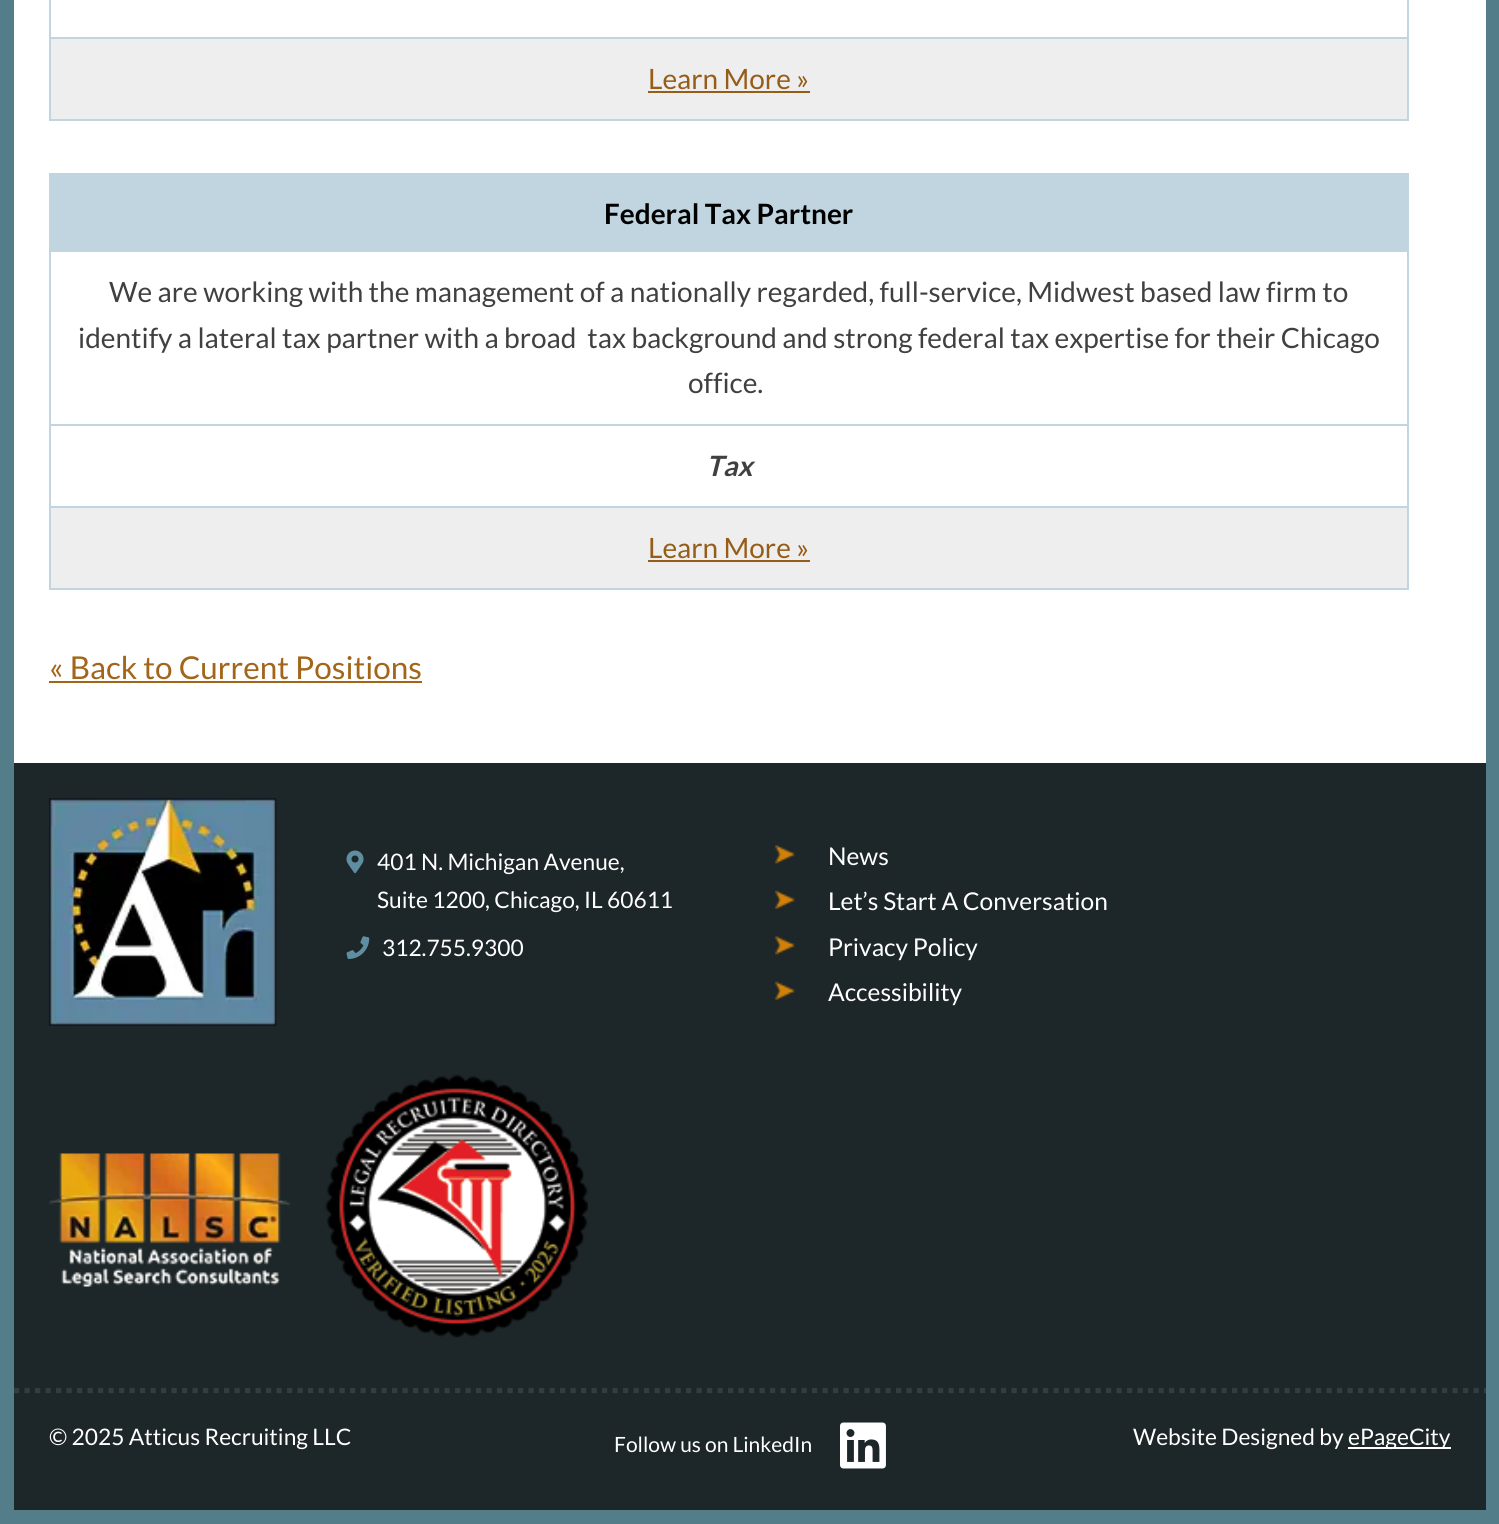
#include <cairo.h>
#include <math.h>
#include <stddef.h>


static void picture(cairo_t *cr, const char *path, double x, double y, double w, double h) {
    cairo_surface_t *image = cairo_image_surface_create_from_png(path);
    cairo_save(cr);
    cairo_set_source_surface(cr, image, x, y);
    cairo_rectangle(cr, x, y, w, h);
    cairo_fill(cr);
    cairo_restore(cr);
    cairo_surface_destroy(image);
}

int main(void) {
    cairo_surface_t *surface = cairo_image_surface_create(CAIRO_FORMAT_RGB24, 1499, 1524);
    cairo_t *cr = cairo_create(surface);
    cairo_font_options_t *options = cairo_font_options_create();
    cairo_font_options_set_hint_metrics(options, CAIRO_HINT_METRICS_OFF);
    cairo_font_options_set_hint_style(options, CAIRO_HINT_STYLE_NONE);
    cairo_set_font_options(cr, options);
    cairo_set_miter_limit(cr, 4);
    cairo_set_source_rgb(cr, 0.325, 0.49, 0.533);
    cairo_paint(cr);
    cairo_set_source_rgb(cr, 1, 1, 1);
    cairo_rectangle(cr, 14, 0, 1472, 763);
    cairo_fill(cr);
    cairo_rectangle(cr, 50, -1, 1358, 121);
    cairo_set_source_rgb(cr, 0.753, 0.835, 0.878);
    cairo_stroke(cr);
    cairo_rectangle(cr, 51, 37, 1356, 2);
    cairo_fill(cr);
    cairo_set_source_rgb(cr, 0.933, 0.933, 0.933);
    cairo_rectangle(cr, 51, 39, 1356, 80);
    cairo_fill(cr);
    cairo_select_font_face(cr, "Lato", CAIRO_FONT_SLANT_NORMAL, CAIRO_FONT_WEIGHT_NORMAL);
    cairo_set_font_size(cr, 28);
    cairo_set_source_rgb(cr, 0.584, 0.365, 0.094);
    cairo_move_to(cr, 648, 89);
    cairo_show_text(cr, "Learn More »");
    cairo_rectangle(cr, 648, 91, 162, 2);
    cairo_fill(cr);
    cairo_rectangle(cr, 50, 174, 1358, 415);
    cairo_set_source_rgb(cr, 0.753, 0.835, 0.878);
    cairo_stroke(cr);
    cairo_rectangle(cr, 51, 175, 1356, 77);
    cairo_fill(cr);
    cairo_select_font_face(cr, "Lato", CAIRO_FONT_SLANT_NORMAL, CAIRO_FONT_WEIGHT_BOLD);
    cairo_set_source_rgb(cr, 0, 0, 0);
    cairo_move_to(cr, 604, 224);
    cairo_show_text(cr, "Federal Tax Partner");
    cairo_select_font_face(cr, "Lato", CAIRO_FONT_SLANT_NORMAL, CAIRO_FONT_WEIGHT_NORMAL);
    cairo_set_source_rgb(cr, 0.251, 0.251, 0.251);
    cairo_move_to(cr, 109, 302);
    cairo_show_text(cr, "We are working with the management of a nationally regarded, full-service, Midwest based law firm to");
    cairo_move_to(cr, 78, 348);
    cairo_show_text(cr, "identify a lateral tax partner with a broad  tax background and strong federal tax expertise for their Chicago");
    cairo_move_to(cr, 688, 393);
    cairo_show_text(cr, "office.");
    cairo_set_source_rgb(cr, 0.753, 0.835, 0.878);
    cairo_rectangle(cr, 51, 424, 1356, 2);
    cairo_fill(cr);
    cairo_rectangle(cr, 51, 506, 1356, 2);
    cairo_fill(cr);
    cairo_select_font_face(cr, "Lato", CAIRO_FONT_SLANT_ITALIC, CAIRO_FONT_WEIGHT_BOLD);
    cairo_set_source_rgb(cr, 0.251, 0.251, 0.251);
    cairo_move_to(cr, 706, 476);
    cairo_show_text(cr, "Tax");
    cairo_set_source_rgb(cr, 0.933, 0.933, 0.933);
    cairo_rectangle(cr, 51, 508, 1356, 80);
    cairo_fill(cr);
    cairo_select_font_face(cr, "Lato", CAIRO_FONT_SLANT_NORMAL, CAIRO_FONT_WEIGHT_NORMAL);
    cairo_set_source_rgb(cr, 0.584, 0.365, 0.094);
    cairo_move_to(cr, 648, 558);
    cairo_show_text(cr, "Learn More »");
    cairo_rectangle(cr, 648, 560, 162, 2);
    cairo_fill(cr);
    cairo_set_font_size(cr, 31.5);
    cairo_set_source_rgb(cr, 0.635, 0.396, 0.102);
    cairo_move_to(cr, 49, 679);
    cairo_show_text(cr, "« Back to Current Positions");
    cairo_rectangle(cr, 49, 681, 373, 2);
    cairo_fill(cr);
    cairo_set_source_rgb(cr, 0.114, 0.149, 0.161);
    cairo_rectangle(cr, 14, 763, 1472, 747);
    cairo_fill(cr);
    picture(cr, "img1.png", 49, 798, 228, 228);
    picture(cr, "img2.png", 346, 850, 18, 24);
    cairo_set_font_size(cr, 22.75);
    cairo_set_source_rgb(cr, 1, 1, 1);
    cairo_move_to(cr, 377, 870);
    cairo_show_text(cr, "401 N. Michigan Avenue,");
    cairo_move_to(cr, 377, 908);
    cairo_show_text(cr, "Suite 1200, Chicago, IL 60611");
    picture(cr, "img3.png", 346, 936, 24, 23);
    cairo_move_to(cr, 382, 956);
    cairo_show_text(cr, "312.755.9300");
    picture(cr, "img4.png", 775, 845, 20, 19);
    cairo_set_font_size(cr, 24.5);
    cairo_move_to(cr, 828, 865);
    cairo_show_text(cr, "News");
    picture(cr, "img5.png", 775, 890, 20, 19);
    cairo_move_to(cr, 828, 910);
    cairo_show_text(cr, "Let’s Start A Conversation");
    picture(cr, "img4.png", 775, 936, 20, 19);
    cairo_move_to(cr, 828, 956);
    cairo_show_text(cr, "Privacy Policy");
    picture(cr, "img5.png", 775, 981, 20, 19);
    cairo_move_to(cr, 828, 1001);
    cairo_show_text(cr, "Accessibility");
    picture(cr, "img6.png", 49, 1153, 242, 134);
    picture(cr, "img7.png", 325, 1074, 263, 264);
    cairo_new_path(cr);
    cairo_move_to(cr, 14, 1390.5);
    cairo_line_to(cr, 1486, 1390.5);
    cairo_set_source_rgb(cr, 0.192, 0.239, 0.255);
    cairo_set_line_width(cr, 5.2);
    cairo_set_dash(cr, (double[]){5.25, 5.25}, 2, 0);
    cairo_stroke(cr);
    cairo_set_font_size(cr, 22.75);
    cairo_set_source_rgb(cr, 1, 1, 1);
    cairo_move_to(cr, 49, 1445);
    cairo_show_text(cr, "© 2025 Atticus Recruiting LLC");
    cairo_set_font_size(cr, 21);
    cairo_move_to(cr, 614, 1452);
    cairo_show_text(cr, "Follow us on LinkedIn");
    picture(cr, "img8.png", 840, 1422, 46, 47);
    cairo_set_font_size(cr, 22.75);
    cairo_move_to(cr, 1133, 1445);
    cairo_show_text(cr, "Website Designed by");
    cairo_rectangle(cr, 1348, 1447, 103, 2);
    cairo_fill(cr);
    cairo_move_to(cr, 1348, 1445);
    cairo_show_text(cr, "ePageCity");
    cairo_surface_write_to_png(surface, "page.png");
    cairo_font_options_destroy(options);
    cairo_destroy(cr);
    cairo_surface_destroy(surface);
    return 0;
}
